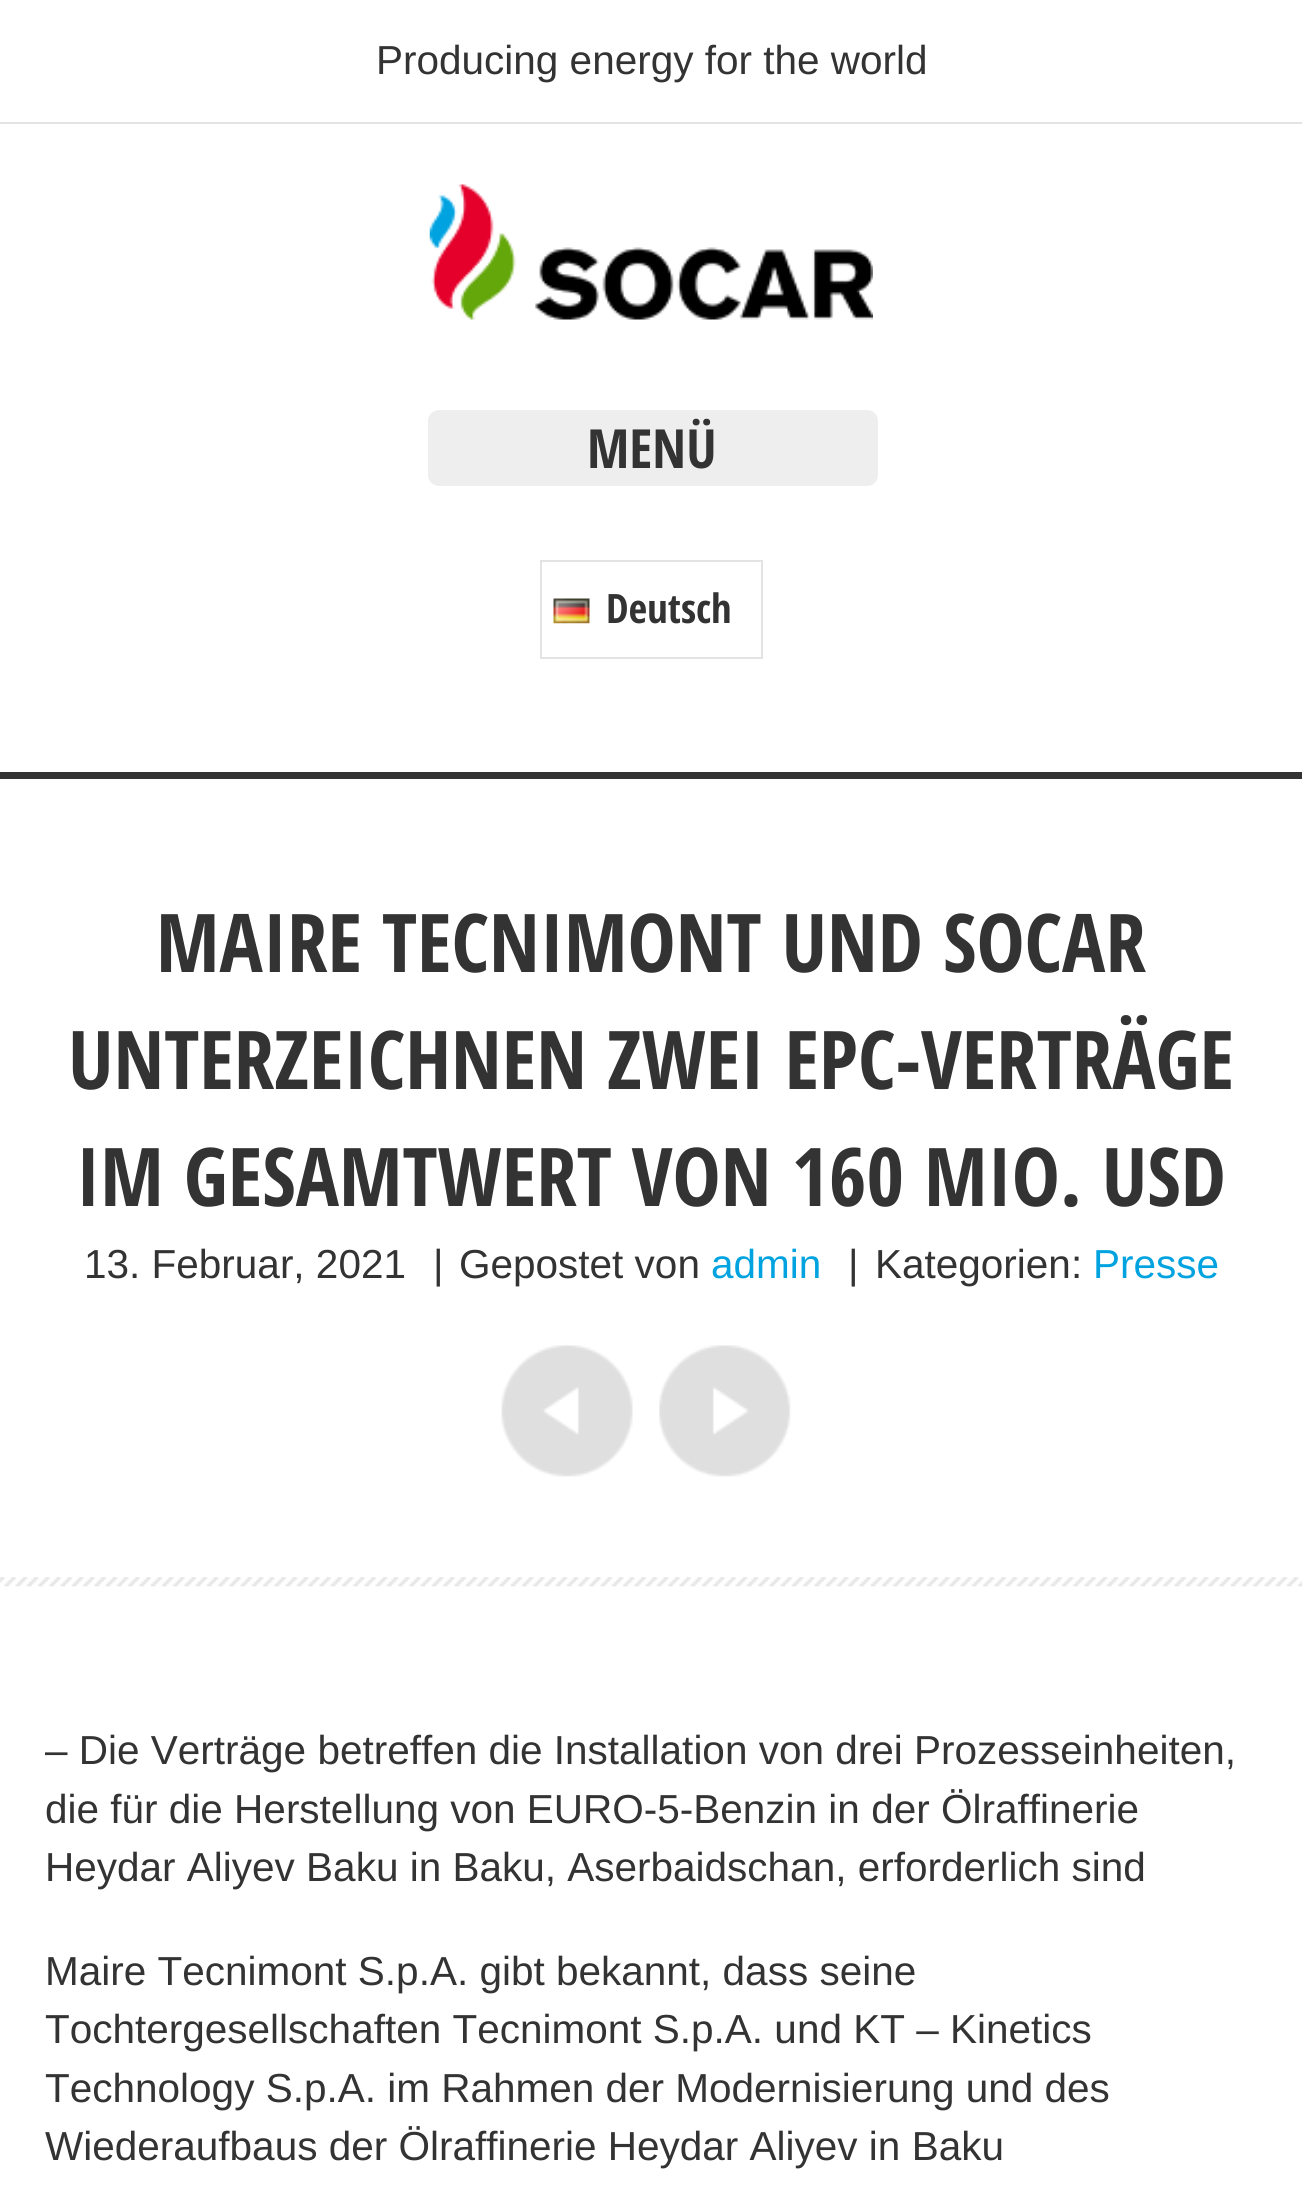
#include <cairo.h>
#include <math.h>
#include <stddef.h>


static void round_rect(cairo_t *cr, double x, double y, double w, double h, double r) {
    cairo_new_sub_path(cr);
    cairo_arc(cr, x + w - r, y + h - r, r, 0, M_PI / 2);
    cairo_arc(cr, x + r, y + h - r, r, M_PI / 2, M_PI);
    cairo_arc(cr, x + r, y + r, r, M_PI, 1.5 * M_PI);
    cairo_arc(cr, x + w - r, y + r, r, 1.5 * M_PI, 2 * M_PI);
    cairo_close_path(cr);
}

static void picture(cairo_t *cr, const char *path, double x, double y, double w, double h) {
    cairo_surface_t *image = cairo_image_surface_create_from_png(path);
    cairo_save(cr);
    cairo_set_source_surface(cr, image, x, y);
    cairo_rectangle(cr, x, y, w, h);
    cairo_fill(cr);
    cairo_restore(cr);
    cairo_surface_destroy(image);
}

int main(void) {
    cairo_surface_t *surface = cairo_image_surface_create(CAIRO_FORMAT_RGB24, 1302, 2196);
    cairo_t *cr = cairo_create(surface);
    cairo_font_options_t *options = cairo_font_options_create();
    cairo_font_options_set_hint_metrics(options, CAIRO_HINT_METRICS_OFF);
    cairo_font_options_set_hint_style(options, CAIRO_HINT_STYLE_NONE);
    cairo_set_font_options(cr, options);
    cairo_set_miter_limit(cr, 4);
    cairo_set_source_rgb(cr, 1, 1, 1);
    cairo_paint(cr);
    cairo_set_source_rgb(cr, 0.2, 0.2, 0.2);
    cairo_new_path(cr);
    cairo_move_to(cr, 0, 772);
    cairo_line_to(cr, 0, 779);
    cairo_line_to(cr, 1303, 779);
    cairo_line_to(cr, 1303, 7);
    cairo_line_to(cr, 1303, 772);
    cairo_close_path(cr);
    cairo_fill(cr);
    cairo_select_font_face(cr, "Liberation Sans", CAIRO_FONT_SLANT_NORMAL, CAIRO_FONT_WEIGHT_NORMAL);
    cairo_set_font_size(cr, 40.5);
    cairo_move_to(cr, 376, 74);
    cairo_show_text(cr, "Producing energy for the world");
    cairo_set_source_rgb(cr, 0.886, 0.89, 0.894);
    cairo_rectangle(cr, 0, 122, 1302, 2);
    cairo_fill(cr);
    picture(cr, "img1.png", 429, 184, 444, 136);
    cairo_set_source_rgb(cr, 0.933, 0.933, 0.933);
    round_rect(cr, 428, 410, 450, 76, 11);
    cairo_fill(cr);
    cairo_select_font_face(cr, "Open Sans Condensed", CAIRO_FONT_SLANT_NORMAL, CAIRO_FONT_WEIGHT_BOLD);
    cairo_set_font_size(cr, 54);
    cairo_set_source_rgb(cr, 0.2, 0.2, 0.2);
    cairo_move_to(cr, 587, 468);
    cairo_show_text(cr, "MENÜ");
    cairo_rectangle(cr, 541, 561, 221, 97);
    cairo_set_source_rgb(cr, 0.886, 0.89, 0.894);
    cairo_stroke(cr);
    picture(cr, "img2.png", 553, 598, 37, 26);
    cairo_set_font_size(cr, 40.5);
    cairo_set_source_rgb(cr, 0.2, 0.2, 0.2);
    cairo_move_to(cr, 606, 623);
    cairo_show_text(cr, "Deutsch");
    cairo_set_font_size(cr, 81);
    cairo_move_to(cr, 156, 972);
    cairo_show_text(cr, "MAIRE TECNIMONT UND SOCAR");
    cairo_move_to(cr, 68, 1089);
    cairo_show_text(cr, "UNTERZEICHNEN ZWEI EPC-VERTRÄGE");
    cairo_move_to(cr, 76, 1206);
    cairo_show_text(cr, "IM GESAMTWERT VON 160 MIO. USD");
    cairo_select_font_face(cr, "Liberation Sans", CAIRO_FONT_SLANT_NORMAL, CAIRO_FONT_WEIGHT_NORMAL);
    cairo_set_font_size(cr, 40.5);
    cairo_move_to(cr, 84, 1278);
    cairo_show_text(cr, "13. Februar, 2021");
    cairo_move_to(cr, 433, 1278);
    cairo_show_text(cr, "|");
    cairo_move_to(cr, 459, 1278);
    cairo_show_text(cr, "Gepostet von");
    cairo_set_source_rgb(cr, 0, 0.639, 0.878);
    cairo_move_to(cr, 711, 1278);
    cairo_show_text(cr, "admin");
    cairo_set_source_rgb(cr, 0.2, 0.2, 0.2);
    cairo_move_to(cr, 848, 1278);
    cairo_show_text(cr, "|");
    cairo_move_to(cr, 875, 1278);
    cairo_show_text(cr, "Kategorien:");
    cairo_set_source_rgb(cr, 0, 0.639, 0.878);
    cairo_move_to(cr, 1093, 1278);
    cairo_show_text(cr, "Presse");
    picture(cr, "img3.png", 501, 1345, 132, 132);
    picture(cr, "img4.png", 659, 1345, 132, 132);
    picture(cr, "img5.png", 0, 1577, 1302, 10);
    cairo_set_source_rgb(cr, 0.2, 0.2, 0.2);
    cairo_move_to(cr, 45, 1764);
    cairo_show_text(cr, "– Die Verträge betreffen die Installation von drei Prozesseinheiten,");
    cairo_move_to(cr, 45, 1823);
    cairo_show_text(cr, "die für die Herstellung von EURO-5-Benzin in der Ölraffinerie");
    cairo_move_to(cr, 45, 1881);
    cairo_show_text(cr, "Heydar Aliyev Baku in Baku, Aserbaidschan, erforderlich sind");
    cairo_move_to(cr, 45, 1985);
    cairo_show_text(cr, "Maire Tecnimont S.p.A. gibt bekannt, dass seine");
    cairo_move_to(cr, 45, 2043);
    cairo_show_text(cr, "Tochtergesellschaften Tecnimont S.p.A. und KT – Kinetics");
    cairo_move_to(cr, 45, 2102);
    cairo_show_text(cr, "Technology S.p.A. im Rahmen der Modernisierung und des");
    cairo_move_to(cr, 45, 2160);
    cairo_show_text(cr, "Wiederaufbaus der Ölraffinerie Heydar Aliyev in Baku");
    cairo_surface_write_to_png(surface, "page.png");
    cairo_font_options_destroy(options);
    cairo_destroy(cr);
    cairo_surface_destroy(surface);
    return 0;
}
